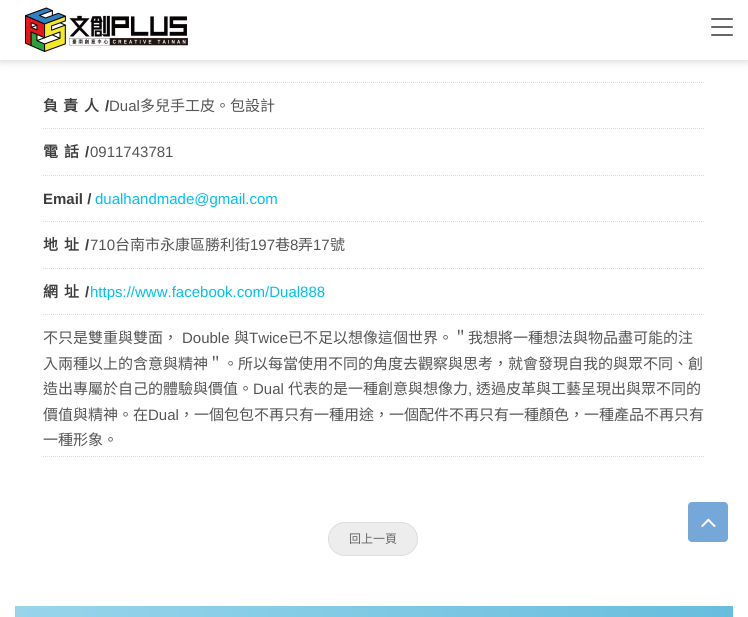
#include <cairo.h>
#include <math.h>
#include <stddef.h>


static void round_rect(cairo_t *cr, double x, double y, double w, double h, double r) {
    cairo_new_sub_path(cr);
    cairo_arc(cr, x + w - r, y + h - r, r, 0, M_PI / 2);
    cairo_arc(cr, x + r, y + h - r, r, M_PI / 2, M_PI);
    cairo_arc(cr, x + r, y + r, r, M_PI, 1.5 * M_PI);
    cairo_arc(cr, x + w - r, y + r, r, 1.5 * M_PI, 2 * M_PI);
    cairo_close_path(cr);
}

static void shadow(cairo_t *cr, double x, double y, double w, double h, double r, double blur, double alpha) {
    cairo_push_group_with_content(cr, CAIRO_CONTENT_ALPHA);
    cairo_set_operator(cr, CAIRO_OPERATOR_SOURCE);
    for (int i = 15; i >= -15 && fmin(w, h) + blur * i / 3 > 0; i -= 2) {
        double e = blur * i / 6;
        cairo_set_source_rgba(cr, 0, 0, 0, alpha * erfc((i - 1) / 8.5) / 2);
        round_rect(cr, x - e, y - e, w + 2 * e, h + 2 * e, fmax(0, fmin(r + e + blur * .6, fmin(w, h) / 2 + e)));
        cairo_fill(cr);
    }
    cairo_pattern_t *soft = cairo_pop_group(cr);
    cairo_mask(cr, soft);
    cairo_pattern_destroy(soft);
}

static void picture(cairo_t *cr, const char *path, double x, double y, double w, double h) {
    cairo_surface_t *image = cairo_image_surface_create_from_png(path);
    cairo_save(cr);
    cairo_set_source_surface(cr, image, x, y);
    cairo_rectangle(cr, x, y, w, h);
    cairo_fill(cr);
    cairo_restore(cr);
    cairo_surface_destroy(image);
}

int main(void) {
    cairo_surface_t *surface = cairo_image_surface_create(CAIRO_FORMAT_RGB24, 748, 617);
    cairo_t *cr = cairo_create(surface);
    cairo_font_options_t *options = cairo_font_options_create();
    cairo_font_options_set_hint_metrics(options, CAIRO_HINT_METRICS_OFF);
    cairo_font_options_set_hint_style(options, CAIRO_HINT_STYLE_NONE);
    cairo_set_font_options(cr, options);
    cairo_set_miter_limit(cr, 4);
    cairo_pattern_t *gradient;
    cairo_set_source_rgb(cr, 1, 1, 1);
    cairo_paint(cr);
    cairo_set_source_rgb(cr, 0, 0, 0);
    shadow(cr, 0, 0, 748, 60, 0, 5, 0.2);
    cairo_set_source_rgb(cr, 1, 1, 1);
    cairo_rectangle(cr, 0, 0, 748, 60);
    cairo_fill(cr);
    picture(cr, "img1.png", 24, 6, 164, 47);
    cairo_set_source_rgb(cr, 0.4, 0.4, 0.4);
    round_rect(cr, 711, 18, 22, 2, 1);
    cairo_fill(cr);
    round_rect(cr, 711, 26, 22, 2, 1);
    cairo_fill(cr);
    round_rect(cr, 711, 34, 22, 2, 1);
    cairo_fill(cr);
    cairo_new_path(cr);
    cairo_move_to(cr, 43, 82.5);
    cairo_line_to(cr, 705, 82.5);
    cairo_set_source_rgb(cr, 0.863, 0.863, 0.863);
    cairo_set_line_width(cr, 1);
    cairo_set_dash(cr, (double[]){1, 1}, 2, 0);
    cairo_stroke(cr);
    cairo_new_path(cr);
    cairo_move_to(cr, 43, 128.5);
    cairo_line_to(cr, 705, 128.5);
    cairo_stroke(cr);
    cairo_select_font_face(cr, "Noto Sans CJK TC", CAIRO_FONT_SLANT_NORMAL, CAIRO_FONT_WEIGHT_BOLD);
    cairo_set_font_size(cr, 15);
    cairo_set_source_rgb(cr, 0.239, 0.239, 0.239);
    cairo_move_to(cr, 43, 111);
    cairo_show_text(cr, "負");
    cairo_move_to(cr, 63, 111);
    cairo_show_text(cr, "責");
    cairo_move_to(cr, 84, 111);
    cairo_show_text(cr, "人");
    cairo_select_font_face(cr, "Liberation Sans", CAIRO_FONT_SLANT_NORMAL, CAIRO_FONT_WEIGHT_BOLD);
    cairo_move_to(cr, 105, 111);
    cairo_show_text(cr, "/");
    cairo_select_font_face(cr, "Liberation Sans", CAIRO_FONT_SLANT_NORMAL, CAIRO_FONT_WEIGHT_NORMAL);
    cairo_set_source_rgb(cr, 0.333, 0.333, 0.333);
    cairo_move_to(cr, 109, 111);
    cairo_show_text(cr, "Dual");
    cairo_select_font_face(cr, "Noto Sans CJK TC", CAIRO_FONT_SLANT_NORMAL, CAIRO_FONT_WEIGHT_NORMAL);
    cairo_move_to(cr, 140, 111);
    cairo_show_text(cr, "多兒手工皮。包設計");
    cairo_new_path(cr);
    cairo_move_to(cr, 43, 175.5);
    cairo_line_to(cr, 705, 175.5);
    cairo_set_source_rgb(cr, 0.863, 0.863, 0.863);
    cairo_stroke(cr);
    cairo_select_font_face(cr, "Noto Sans CJK TC", CAIRO_FONT_SLANT_NORMAL, CAIRO_FONT_WEIGHT_BOLD);
    cairo_set_source_rgb(cr, 0.239, 0.239, 0.239);
    cairo_move_to(cr, 43, 157);
    cairo_show_text(cr, "電");
    cairo_move_to(cr, 64, 157);
    cairo_show_text(cr, "話");
    cairo_select_font_face(cr, "Liberation Sans", CAIRO_FONT_SLANT_NORMAL, CAIRO_FONT_WEIGHT_BOLD);
    cairo_move_to(cr, 85, 157);
    cairo_show_text(cr, "/");
    cairo_select_font_face(cr, "Liberation Sans", CAIRO_FONT_SLANT_NORMAL, CAIRO_FONT_WEIGHT_NORMAL);
    cairo_set_source_rgb(cr, 0.333, 0.333, 0.333);
    cairo_move_to(cr, 90, 157);
    cairo_show_text(cr, "0911743781");
    cairo_new_path(cr);
    cairo_move_to(cr, 43, 221.5);
    cairo_line_to(cr, 705, 221.5);
    cairo_set_source_rgb(cr, 0.863, 0.863, 0.863);
    cairo_stroke(cr);
    cairo_select_font_face(cr, "Liberation Sans", CAIRO_FONT_SLANT_NORMAL, CAIRO_FONT_WEIGHT_BOLD);
    cairo_set_source_rgb(cr, 0.239, 0.239, 0.239);
    cairo_move_to(cr, 43, 204);
    cairo_show_text(cr, "Email /");
    cairo_select_font_face(cr, "Liberation Sans", CAIRO_FONT_SLANT_NORMAL, CAIRO_FONT_WEIGHT_NORMAL);
    cairo_set_source_rgb(cr, 0, 0.749, 0.953);
    cairo_move_to(cr, 95, 204);
    cairo_show_text(cr, "dualhandmade@gmail.com");
    cairo_new_path(cr);
    cairo_move_to(cr, 43, 268.5);
    cairo_line_to(cr, 705, 268.5);
    cairo_set_source_rgb(cr, 0.863, 0.863, 0.863);
    cairo_stroke(cr);
    cairo_select_font_face(cr, "Noto Sans CJK TC", CAIRO_FONT_SLANT_NORMAL, CAIRO_FONT_WEIGHT_BOLD);
    cairo_set_source_rgb(cr, 0.239, 0.239, 0.239);
    cairo_move_to(cr, 43, 250);
    cairo_show_text(cr, "地");
    cairo_move_to(cr, 64, 250);
    cairo_show_text(cr, "址");
    cairo_select_font_face(cr, "Liberation Sans", CAIRO_FONT_SLANT_NORMAL, CAIRO_FONT_WEIGHT_BOLD);
    cairo_move_to(cr, 85, 250);
    cairo_show_text(cr, "/");
    cairo_select_font_face(cr, "Liberation Sans", CAIRO_FONT_SLANT_NORMAL, CAIRO_FONT_WEIGHT_NORMAL);
    cairo_set_source_rgb(cr, 0.333, 0.333, 0.333);
    cairo_move_to(cr, 90, 250);
    cairo_show_text(cr, "710");
    cairo_select_font_face(cr, "Noto Sans CJK TC", CAIRO_FONT_SLANT_NORMAL, CAIRO_FONT_WEIGHT_NORMAL);
    cairo_move_to(cr, 115, 250);
    cairo_show_text(cr, "台南市永康區勝利街");
    cairo_select_font_face(cr, "Liberation Sans", CAIRO_FONT_SLANT_NORMAL, CAIRO_FONT_WEIGHT_NORMAL);
    cairo_move_to(cr, 250, 250);
    cairo_show_text(cr, "197");
    cairo_select_font_face(cr, "Noto Sans CJK TC", CAIRO_FONT_SLANT_NORMAL, CAIRO_FONT_WEIGHT_NORMAL);
    cairo_move_to(cr, 275, 250);
    cairo_show_text(cr, "巷");
    cairo_select_font_face(cr, "Liberation Sans", CAIRO_FONT_SLANT_NORMAL, CAIRO_FONT_WEIGHT_NORMAL);
    cairo_move_to(cr, 290, 250);
    cairo_show_text(cr, "8");
    cairo_select_font_face(cr, "Noto Sans CJK TC", CAIRO_FONT_SLANT_NORMAL, CAIRO_FONT_WEIGHT_NORMAL);
    cairo_move_to(cr, 298, 250);
    cairo_show_text(cr, "弄");
    cairo_select_font_face(cr, "Liberation Sans", CAIRO_FONT_SLANT_NORMAL, CAIRO_FONT_WEIGHT_NORMAL);
    cairo_move_to(cr, 313, 250);
    cairo_show_text(cr, "17");
    cairo_select_font_face(cr, "Noto Sans CJK TC", CAIRO_FONT_SLANT_NORMAL, CAIRO_FONT_WEIGHT_NORMAL);
    cairo_move_to(cr, 330, 250);
    cairo_show_text(cr, "號");
    cairo_new_path(cr);
    cairo_move_to(cr, 43, 314.5);
    cairo_line_to(cr, 705, 314.5);
    cairo_set_source_rgb(cr, 0.863, 0.863, 0.863);
    cairo_stroke(cr);
    cairo_select_font_face(cr, "Noto Sans CJK TC", CAIRO_FONT_SLANT_NORMAL, CAIRO_FONT_WEIGHT_BOLD);
    cairo_set_source_rgb(cr, 0.239, 0.239, 0.239);
    cairo_move_to(cr, 43, 297);
    cairo_show_text(cr, "網");
    cairo_move_to(cr, 64, 297);
    cairo_show_text(cr, "址");
    cairo_select_font_face(cr, "Liberation Sans", CAIRO_FONT_SLANT_NORMAL, CAIRO_FONT_WEIGHT_BOLD);
    cairo_move_to(cr, 85, 297);
    cairo_show_text(cr, "/");
    cairo_select_font_face(cr, "Liberation Sans", CAIRO_FONT_SLANT_NORMAL, CAIRO_FONT_WEIGHT_NORMAL);
    cairo_set_source_rgb(cr, 0, 0.749, 0.953);
    cairo_move_to(cr, 90, 297);
    cairo_show_text(cr, "https://www.facebook.com/Dual888");
    cairo_new_path(cr);
    cairo_move_to(cr, 43, 456.5);
    cairo_line_to(cr, 705, 456.5);
    cairo_set_source_rgb(cr, 0.863, 0.863, 0.863);
    cairo_stroke(cr);
    cairo_select_font_face(cr, "Noto Sans CJK TC", CAIRO_FONT_SLANT_NORMAL, CAIRO_FONT_WEIGHT_NORMAL);
    cairo_set_source_rgb(cr, 0.333, 0.333, 0.333);
    cairo_move_to(cr, 43, 343);
    cairo_show_text(cr, "不只是雙重與雙面，");
    cairo_select_font_face(cr, "Liberation Sans", CAIRO_FONT_SLANT_NORMAL, CAIRO_FONT_WEIGHT_NORMAL);
    cairo_move_to(cr, 182, 343);
    cairo_show_text(cr, "Double");
    cairo_select_font_face(cr, "Noto Sans CJK TC", CAIRO_FONT_SLANT_NORMAL, CAIRO_FONT_WEIGHT_NORMAL);
    cairo_move_to(cr, 234, 343);
    cairo_show_text(cr, "與");
    cairo_select_font_face(cr, "Liberation Sans", CAIRO_FONT_SLANT_NORMAL, CAIRO_FONT_WEIGHT_NORMAL);
    cairo_move_to(cr, 249, 343);
    cairo_show_text(cr, "Twice");
    cairo_select_font_face(cr, "Noto Sans CJK TC", CAIRO_FONT_SLANT_NORMAL, CAIRO_FONT_WEIGHT_NORMAL);
    cairo_move_to(cr, 288, 343);
    cairo_show_text(cr, "已不足以想像這個世界。＂我想將一種想法與物品盡可能的注");
    cairo_move_to(cr, 43, 369);
    cairo_show_text(cr, "入兩種以上的含意與精神＂。所以每當使用不同的角度去觀察與思考，就會發現自我的與眾不同、創");
    cairo_move_to(cr, 43, 394);
    cairo_show_text(cr, "造出專屬於自己的體驗與價值。");
    cairo_select_font_face(cr, "Liberation Sans", CAIRO_FONT_SLANT_NORMAL, CAIRO_FONT_WEIGHT_NORMAL);
    cairo_move_to(cr, 253, 394);
    cairo_show_text(cr, "Dual");
    cairo_select_font_face(cr, "Noto Sans CJK TC", CAIRO_FONT_SLANT_NORMAL, CAIRO_FONT_WEIGHT_NORMAL);
    cairo_move_to(cr, 288, 394);
    cairo_show_text(cr, "代表的是一種創意與想像力");
    cairo_select_font_face(cr, "Liberation Sans", CAIRO_FONT_SLANT_NORMAL, CAIRO_FONT_WEIGHT_NORMAL);
    cairo_move_to(cr, 468, 394);
    cairo_show_text(cr, ",");
    cairo_select_font_face(cr, "Noto Sans CJK TC", CAIRO_FONT_SLANT_NORMAL, CAIRO_FONT_WEIGHT_NORMAL);
    cairo_move_to(cr, 476, 394);
    cairo_show_text(cr, "透過皮革與工藝呈現出與眾不同的");
    cairo_move_to(cr, 43, 420);
    cairo_show_text(cr, "價值與精神。在");
    cairo_select_font_face(cr, "Liberation Sans", CAIRO_FONT_SLANT_NORMAL, CAIRO_FONT_WEIGHT_NORMAL);
    cairo_move_to(cr, 148, 420);
    cairo_show_text(cr, "Dual");
    cairo_select_font_face(cr, "Noto Sans CJK TC", CAIRO_FONT_SLANT_NORMAL, CAIRO_FONT_WEIGHT_NORMAL);
    cairo_move_to(cr, 179, 420);
    cairo_show_text(cr, "，一個包包不再只有一種用途，一個配件不再只有一種顏色，一種產品不再只有");
    cairo_move_to(cr, 43, 445);
    cairo_show_text(cr, "一種形象。");
    cairo_set_source_rgb(cr, 0.929, 0.929, 0.929);
    round_rect(cr, 328.5, 522.5, 89, 33, 16.5);
    cairo_fill_preserve(cr);
    cairo_set_source_rgb(cr, 0.867, 0.867, 0.867);
    cairo_set_dash(cr, NULL, 0, 0);
    cairo_stroke(cr);
    cairo_set_font_size(cr, 12);
    cairo_set_source_rgb(cr, 0.4, 0.4, 0.4);
    cairo_move_to(cr, 349, 543);
    cairo_show_text(cr, "回上一頁");
    gradient = cairo_pattern_create_linear(15, 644, 733, 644);
    cairo_pattern_add_color_stop_rgba(gradient, 0, 0.596, 0.835, 0.922, 1);
    cairo_pattern_add_color_stop_rgba(gradient, 1, 0.408, 0.741, 0.867, 1);
    cairo_set_source(cr, gradient);
    cairo_pattern_destroy(gradient);
    cairo_rectangle(cr, 15, 606, 718, 11);
    cairo_fill(cr);
    cairo_set_source_rgb(cr, 0.459, 0.659, 0.847);
    round_rect(cr, 688, 502, 40, 40, 4);
    cairo_fill(cr);
    picture(cr, "img2.png", 701, 518, 15, 9);
    cairo_surface_write_to_png(surface, "page.png");
    cairo_font_options_destroy(options);
    cairo_destroy(cr);
    cairo_surface_destroy(surface);
    return 0;
}
